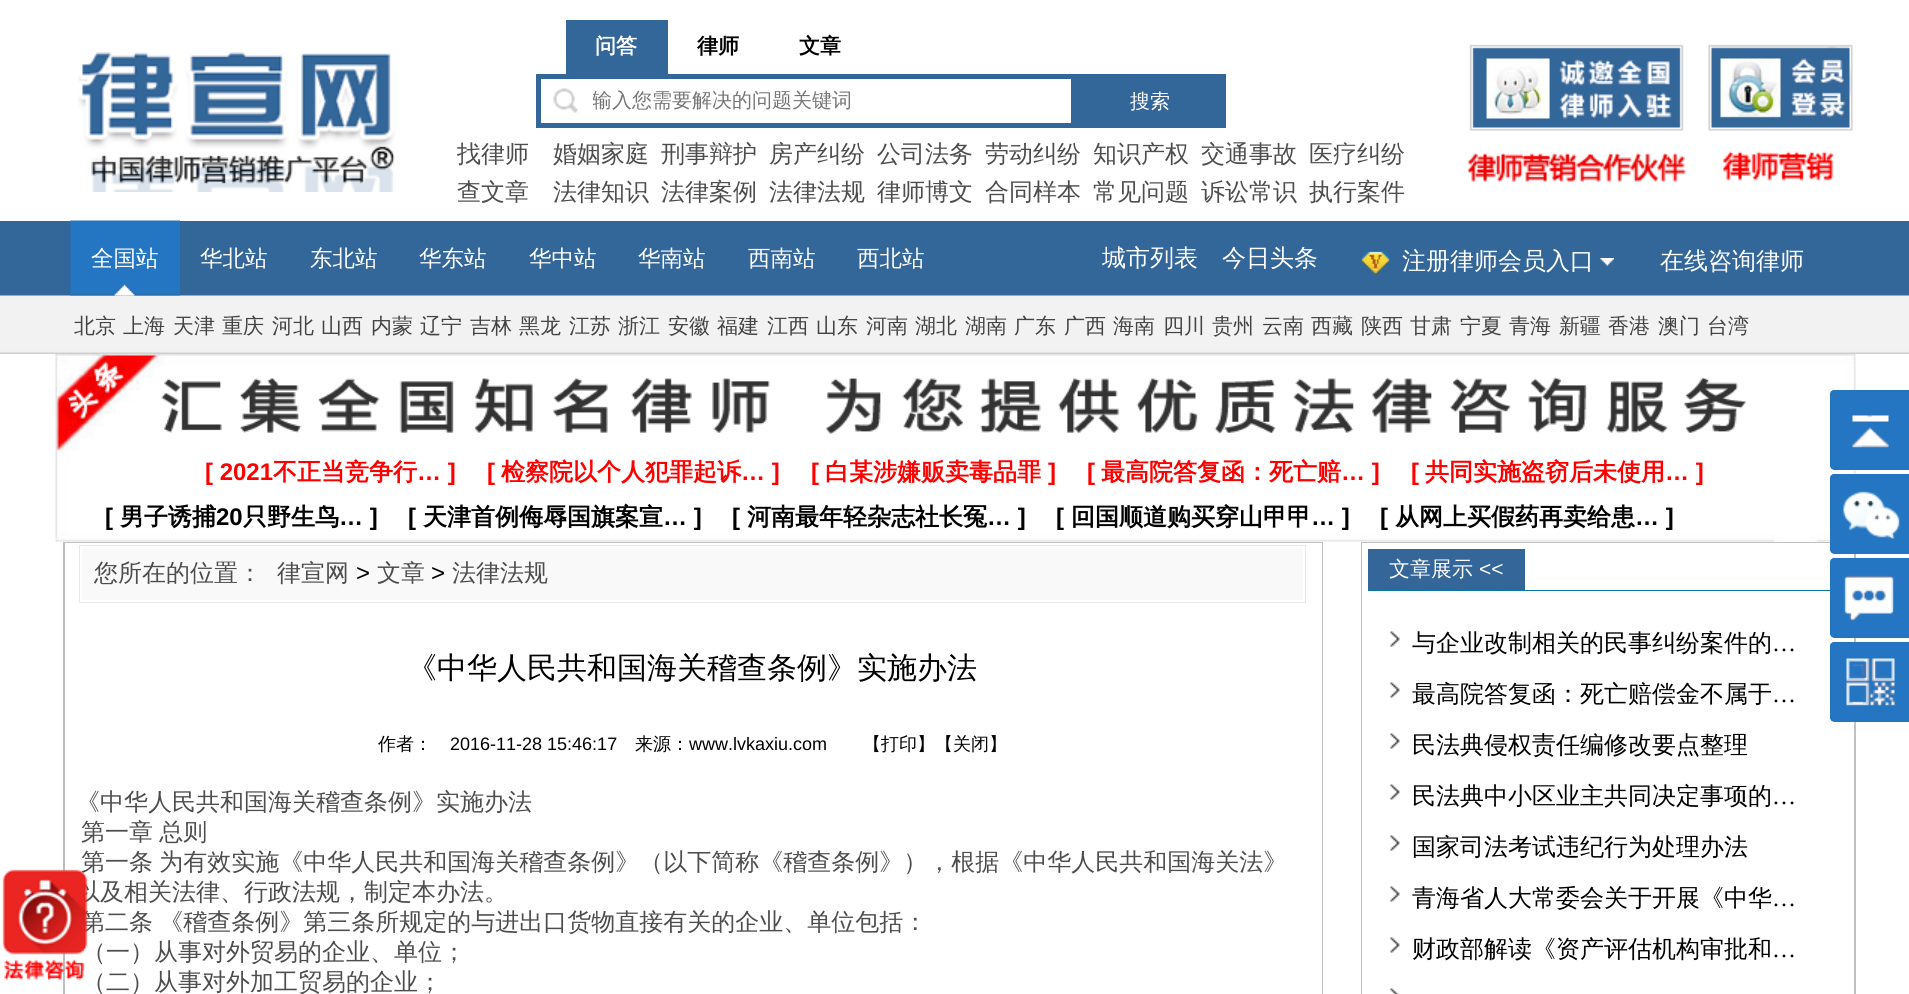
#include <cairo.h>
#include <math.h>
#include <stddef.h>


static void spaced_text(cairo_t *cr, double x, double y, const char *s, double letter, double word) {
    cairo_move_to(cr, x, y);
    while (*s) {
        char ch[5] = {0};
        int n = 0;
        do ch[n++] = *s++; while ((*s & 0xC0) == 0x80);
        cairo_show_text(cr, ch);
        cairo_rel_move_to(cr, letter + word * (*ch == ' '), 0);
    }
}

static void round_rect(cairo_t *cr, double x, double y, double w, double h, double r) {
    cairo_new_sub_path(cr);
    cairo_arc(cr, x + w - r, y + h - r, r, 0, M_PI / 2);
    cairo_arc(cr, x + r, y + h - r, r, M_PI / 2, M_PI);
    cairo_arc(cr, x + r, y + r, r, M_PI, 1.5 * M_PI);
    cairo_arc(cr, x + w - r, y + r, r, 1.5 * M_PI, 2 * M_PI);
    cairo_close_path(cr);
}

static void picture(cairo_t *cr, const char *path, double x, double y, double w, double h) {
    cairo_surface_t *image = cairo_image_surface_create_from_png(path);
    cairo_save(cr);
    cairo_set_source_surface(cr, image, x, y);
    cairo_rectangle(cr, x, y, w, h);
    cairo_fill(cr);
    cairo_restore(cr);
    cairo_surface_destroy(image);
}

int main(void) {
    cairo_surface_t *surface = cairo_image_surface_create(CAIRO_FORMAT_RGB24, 1909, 994);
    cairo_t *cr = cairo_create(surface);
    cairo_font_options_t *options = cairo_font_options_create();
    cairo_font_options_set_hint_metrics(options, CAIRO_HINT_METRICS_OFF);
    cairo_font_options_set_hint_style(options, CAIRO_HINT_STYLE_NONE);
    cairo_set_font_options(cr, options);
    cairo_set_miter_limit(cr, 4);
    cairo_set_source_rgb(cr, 1, 1, 1);
    cairo_paint(cr);
    picture(cr, "img1.png", 78, 52, 317, 140);
    cairo_set_source_rgb(cr, 0.2, 0.4, 0.6);
    cairo_rectangle(cr, 566, 20, 102, 54);
    cairo_fill(cr);
    cairo_select_font_face(cr, "WenQuanYi Zen Hei", CAIRO_FONT_SLANT_NORMAL, CAIRO_FONT_WEIGHT_BOLD);
    cairo_set_font_size(cr, 21);
    cairo_set_source_rgb(cr, 1, 1, 1);
    cairo_move_to(cr, 595, 53);
    cairo_show_text(cr, "问答");
    cairo_set_source_rgb(cr, 0, 0, 0);
    cairo_move_to(cr, 697, 53);
    cairo_show_text(cr, "律师");
    cairo_move_to(cr, 799, 53);
    cairo_show_text(cr, "文章");
    picture(cr, "img2.png", 553, 88, 25, 25);
    cairo_rectangle(cr, 538.5, 76.5, 535, 49);
    cairo_set_source_rgb(cr, 0.2, 0.4, 0.6);
    cairo_set_line_width(cr, 5);
    cairo_stroke(cr);
    cairo_save(cr);
    cairo_rectangle(cr, 593, 87, 471, 27);
    cairo_clip(cr);
    cairo_select_font_face(cr, "WenQuanYi Zen Hei Medium", CAIRO_FONT_SLANT_NORMAL, CAIRO_FONT_WEIGHT_NORMAL);
    cairo_set_font_size(cr, 20);
    cairo_set_source_rgb(cr, 0.459, 0.459, 0.459);
    cairo_move_to(cr, 592, 107);
    cairo_show_text(cr, "输入您需要解决的问题关键词");
    cairo_restore(cr);
    cairo_rectangle(cr, 1076, 74, 150, 54);
    cairo_fill(cr);
    cairo_select_font_face(cr, "WenQuanYi Zen Hei Medium", CAIRO_FONT_SLANT_NORMAL, CAIRO_FONT_WEIGHT_NORMAL);
    cairo_set_font_size(cr, 20);
    cairo_set_source_rgb(cr, 1, 1, 1);
    cairo_move_to(cr, 1130, 108);
    cairo_show_text(cr, "搜索");
    cairo_set_font_size(cr, 24);
    cairo_set_source_rgb(cr, 0.302, 0.302, 0.302);
    cairo_move_to(cr, 457, 162);
    cairo_show_text(cr, "找律师");
    cairo_move_to(cr, 553, 162);
    cairo_show_text(cr, "婚姻家庭");
    cairo_move_to(cr, 661, 162);
    cairo_show_text(cr, "刑事辩护");
    cairo_move_to(cr, 769, 162);
    cairo_show_text(cr, "房产纠纷");
    cairo_move_to(cr, 877, 162);
    cairo_show_text(cr, "公司法务");
    cairo_move_to(cr, 985, 162);
    cairo_show_text(cr, "劳动纠纷");
    cairo_move_to(cr, 1093, 162);
    cairo_show_text(cr, "知识产权");
    cairo_move_to(cr, 1201, 162);
    cairo_show_text(cr, "交通事故");
    cairo_move_to(cr, 1309, 162);
    cairo_show_text(cr, "医疗纠纷");
    cairo_move_to(cr, 457, 200);
    cairo_show_text(cr, "查文章");
    cairo_move_to(cr, 553, 200);
    cairo_show_text(cr, "法律知识");
    cairo_move_to(cr, 661, 200);
    cairo_show_text(cr, "法律案例");
    cairo_move_to(cr, 769, 200);
    cairo_show_text(cr, "法律法规");
    cairo_move_to(cr, 877, 200);
    cairo_show_text(cr, "律师博文");
    cairo_move_to(cr, 985, 200);
    cairo_show_text(cr, "合同样本");
    cairo_move_to(cr, 1093, 200);
    cairo_show_text(cr, "常见问题");
    cairo_move_to(cr, 1201, 200);
    cairo_show_text(cr, "诉讼常识");
    cairo_move_to(cr, 1309, 200);
    cairo_show_text(cr, "执行案件");
    picture(cr, "img3.png", 1467, 44, 220, 138);
    picture(cr, "img4.png", 1708, 44, 145, 137);
    cairo_set_source_rgb(cr, 0.2, 0.4, 0.6);
    cairo_rectangle(cr, 0, 221, 1909, 75);
    cairo_fill(cr);
    picture(cr, "img8.png", 0, 295, 1909, 59);
    picture(cr, "img5.png", 70, 220, 110, 76);
    cairo_set_font_size(cr, 22.5);
    cairo_set_source_rgb(cr, 1, 1, 1);
    cairo_move_to(cr, 91, 266);
    cairo_show_text(cr, "全国站");
    cairo_move_to(cr, 200, 266);
    cairo_show_text(cr, "华北站");
    cairo_move_to(cr, 310, 266);
    cairo_show_text(cr, "东北站");
    cairo_move_to(cr, 419, 266);
    cairo_show_text(cr, "华东站");
    cairo_move_to(cr, 529, 266);
    cairo_show_text(cr, "华中站");
    cairo_move_to(cr, 638, 266);
    cairo_show_text(cr, "华南站");
    cairo_move_to(cr, 748, 266);
    cairo_show_text(cr, "西南站");
    cairo_move_to(cr, 857, 266);
    cairo_show_text(cr, "西北站");
    cairo_set_font_size(cr, 24);
    cairo_move_to(cr, 1102, 266);
    cairo_show_text(cr, "城市列表");
    cairo_move_to(cr, 1222, 266);
    cairo_show_text(cr, "今日头条");
    picture(cr, "img6.png", 1600, 258, 14, 8);
    picture(cr, "img7.png", 1360, 250, 31, 24);
    cairo_move_to(cr, 1402, 269);
    cairo_show_text(cr, "注册律师会员入口");
    cairo_move_to(cr, 1660, 269);
    cairo_show_text(cr, "在线咨询律师");
    cairo_set_font_size(cr, 21);
    cairo_set_source_rgb(cr, 0.263, 0.263, 0.263);
    cairo_move_to(cr, 74, 333);
    cairo_show_text(cr, "北京");
    cairo_move_to(cr, 123, 333);
    cairo_show_text(cr, "上海");
    cairo_move_to(cr, 173, 333);
    cairo_show_text(cr, "天津");
    cairo_move_to(cr, 222, 333);
    cairo_show_text(cr, "重庆");
    cairo_move_to(cr, 272, 333);
    cairo_show_text(cr, "河北");
    cairo_move_to(cr, 321, 333);
    cairo_show_text(cr, "山西");
    cairo_move_to(cr, 371, 333);
    cairo_show_text(cr, "内蒙");
    cairo_move_to(cr, 420, 333);
    cairo_show_text(cr, "辽宁");
    cairo_move_to(cr, 470, 333);
    cairo_show_text(cr, "吉林");
    cairo_move_to(cr, 519, 333);
    cairo_show_text(cr, "黑龙");
    cairo_move_to(cr, 569, 333);
    cairo_show_text(cr, "江苏");
    cairo_move_to(cr, 618, 333);
    cairo_show_text(cr, "浙江");
    cairo_move_to(cr, 668, 333);
    cairo_show_text(cr, "安徽");
    cairo_move_to(cr, 717, 333);
    cairo_show_text(cr, "福建");
    cairo_move_to(cr, 767, 333);
    cairo_show_text(cr, "江西");
    cairo_move_to(cr, 816, 333);
    cairo_show_text(cr, "山东");
    cairo_move_to(cr, 866, 333);
    cairo_show_text(cr, "河南");
    cairo_move_to(cr, 915, 333);
    cairo_show_text(cr, "湖北");
    cairo_move_to(cr, 965, 333);
    cairo_show_text(cr, "湖南");
    cairo_move_to(cr, 1014, 333);
    cairo_show_text(cr, "广东");
    cairo_move_to(cr, 1064, 333);
    cairo_show_text(cr, "广西");
    cairo_move_to(cr, 1113, 333);
    cairo_show_text(cr, "海南");
    cairo_move_to(cr, 1163, 333);
    cairo_show_text(cr, "四川");
    cairo_move_to(cr, 1212, 333);
    cairo_show_text(cr, "贵州");
    cairo_move_to(cr, 1262, 333);
    cairo_show_text(cr, "云南");
    cairo_move_to(cr, 1311, 333);
    cairo_show_text(cr, "西藏");
    cairo_move_to(cr, 1361, 333);
    cairo_show_text(cr, "陕西");
    cairo_move_to(cr, 1410, 333);
    cairo_show_text(cr, "甘肃");
    cairo_move_to(cr, 1460, 333);
    cairo_show_text(cr, "宁夏");
    cairo_move_to(cr, 1509, 333);
    cairo_show_text(cr, "青海");
    cairo_move_to(cr, 1559, 333);
    cairo_show_text(cr, "新疆");
    cairo_move_to(cr, 1608, 333);
    cairo_show_text(cr, "香港");
    cairo_move_to(cr, 1658, 333);
    cairo_show_text(cr, "澳门");
    cairo_move_to(cr, 1707, 333);
    cairo_show_text(cr, "台湾");
    picture(cr, "img9.png", 55, 354, 1801, 188);
    picture(cr, "img10.png", 161, 377, 1586, 58);
    cairo_select_font_face(cr, "Liberation Sans", CAIRO_FONT_SLANT_NORMAL, CAIRO_FONT_WEIGHT_BOLD);
    cairo_set_font_size(cr, 24);
    cairo_set_source_rgb(cr, 1, 0, 0);
    cairo_move_to(cr, 205, 480);
    cairo_show_text(cr, "[ 2021");
    cairo_select_font_face(cr, "WenQuanYi Zen Hei", CAIRO_FONT_SLANT_NORMAL, CAIRO_FONT_WEIGHT_BOLD);
    cairo_move_to(cr, 273, 480);
    cairo_show_text(cr, "不正当竞争行");
    cairo_select_font_face(cr, "Liberation Sans", CAIRO_FONT_SLANT_NORMAL, CAIRO_FONT_WEIGHT_BOLD);
    cairo_move_to(cr, 417, 480);
    cairo_show_text(cr, "… ]");
    cairo_move_to(cr, 487, 480);
    cairo_show_text(cr, "[");
    cairo_select_font_face(cr, "WenQuanYi Zen Hei", CAIRO_FONT_SLANT_NORMAL, CAIRO_FONT_WEIGHT_BOLD);
    cairo_move_to(cr, 501, 480);
    cairo_show_text(cr, "检察院以个人犯罪起诉");
    cairo_select_font_face(cr, "Liberation Sans", CAIRO_FONT_SLANT_NORMAL, CAIRO_FONT_WEIGHT_BOLD);
    cairo_move_to(cr, 741, 480);
    cairo_show_text(cr, "… ]");
    cairo_move_to(cr, 811, 480);
    cairo_show_text(cr, "[");
    cairo_select_font_face(cr, "WenQuanYi Zen Hei", CAIRO_FONT_SLANT_NORMAL, CAIRO_FONT_WEIGHT_BOLD);
    cairo_move_to(cr, 825, 480);
    cairo_show_text(cr, "白某涉嫌贩卖毒品罪");
    cairo_select_font_face(cr, "Liberation Sans", CAIRO_FONT_SLANT_NORMAL, CAIRO_FONT_WEIGHT_BOLD);
    cairo_move_to(cr, 1048, 480);
    cairo_show_text(cr, "]");
    cairo_move_to(cr, 1087, 480);
    cairo_show_text(cr, "[");
    cairo_select_font_face(cr, "WenQuanYi Zen Hei", CAIRO_FONT_SLANT_NORMAL, CAIRO_FONT_WEIGHT_BOLD);
    cairo_move_to(cr, 1101, 480);
    cairo_show_text(cr, "最高院答复函：死亡赔");
    cairo_select_font_face(cr, "Liberation Sans", CAIRO_FONT_SLANT_NORMAL, CAIRO_FONT_WEIGHT_BOLD);
    cairo_move_to(cr, 1341, 480);
    cairo_show_text(cr, "… ]");
    cairo_move_to(cr, 1411, 480);
    cairo_show_text(cr, "[");
    cairo_select_font_face(cr, "WenQuanYi Zen Hei", CAIRO_FONT_SLANT_NORMAL, CAIRO_FONT_WEIGHT_BOLD);
    cairo_move_to(cr, 1425, 480);
    cairo_show_text(cr, "共同实施盗窃后未使用");
    cairo_select_font_face(cr, "Liberation Sans", CAIRO_FONT_SLANT_NORMAL, CAIRO_FONT_WEIGHT_BOLD);
    cairo_move_to(cr, 1665, 480);
    cairo_show_text(cr, "… ]");
    cairo_set_source_rgb(cr, 0, 0, 0);
    cairo_move_to(cr, 105, 525);
    cairo_show_text(cr, "[");
    cairo_select_font_face(cr, "WenQuanYi Zen Hei", CAIRO_FONT_SLANT_NORMAL, CAIRO_FONT_WEIGHT_BOLD);
    cairo_move_to(cr, 120, 525);
    cairo_show_text(cr, "男子诱捕");
    cairo_select_font_face(cr, "Liberation Sans", CAIRO_FONT_SLANT_NORMAL, CAIRO_FONT_WEIGHT_BOLD);
    cairo_move_to(cr, 216, 525);
    cairo_show_text(cr, "20");
    cairo_select_font_face(cr, "WenQuanYi Zen Hei", CAIRO_FONT_SLANT_NORMAL, CAIRO_FONT_WEIGHT_BOLD);
    cairo_move_to(cr, 243, 525);
    cairo_show_text(cr, "只野生鸟");
    cairo_select_font_face(cr, "Liberation Sans", CAIRO_FONT_SLANT_NORMAL, CAIRO_FONT_WEIGHT_BOLD);
    cairo_move_to(cr, 339, 525);
    cairo_show_text(cr, "… ]");
    cairo_move_to(cr, 408, 525);
    cairo_show_text(cr, "[");
    cairo_select_font_face(cr, "WenQuanYi Zen Hei", CAIRO_FONT_SLANT_NORMAL, CAIRO_FONT_WEIGHT_BOLD);
    cairo_move_to(cr, 423, 525);
    cairo_show_text(cr, "天津首例侮辱国旗案宣");
    cairo_select_font_face(cr, "Liberation Sans", CAIRO_FONT_SLANT_NORMAL, CAIRO_FONT_WEIGHT_BOLD);
    cairo_move_to(cr, 663, 525);
    cairo_show_text(cr, "… ]");
    cairo_move_to(cr, 732, 525);
    cairo_show_text(cr, "[");
    cairo_select_font_face(cr, "WenQuanYi Zen Hei", CAIRO_FONT_SLANT_NORMAL, CAIRO_FONT_WEIGHT_BOLD);
    cairo_move_to(cr, 747, 525);
    cairo_show_text(cr, "河南最年轻杂志社长冤");
    cairo_select_font_face(cr, "Liberation Sans", CAIRO_FONT_SLANT_NORMAL, CAIRO_FONT_WEIGHT_BOLD);
    cairo_move_to(cr, 987, 525);
    cairo_show_text(cr, "… ]");
    cairo_move_to(cr, 1056, 525);
    cairo_show_text(cr, "[");
    cairo_select_font_face(cr, "WenQuanYi Zen Hei", CAIRO_FONT_SLANT_NORMAL, CAIRO_FONT_WEIGHT_BOLD);
    cairo_move_to(cr, 1071, 525);
    cairo_show_text(cr, "回国顺道购买穿山甲甲");
    cairo_select_font_face(cr, "Liberation Sans", CAIRO_FONT_SLANT_NORMAL, CAIRO_FONT_WEIGHT_BOLD);
    cairo_move_to(cr, 1311, 525);
    cairo_show_text(cr, "… ]");
    cairo_move_to(cr, 1380, 525);
    cairo_show_text(cr, "[");
    cairo_select_font_face(cr, "WenQuanYi Zen Hei", CAIRO_FONT_SLANT_NORMAL, CAIRO_FONT_WEIGHT_BOLD);
    cairo_move_to(cr, 1395, 525);
    cairo_show_text(cr, "从网上买假药再卖给患");
    cairo_select_font_face(cr, "Liberation Sans", CAIRO_FONT_SLANT_NORMAL, CAIRO_FONT_WEIGHT_BOLD);
    cairo_move_to(cr, 1635, 525);
    cairo_show_text(cr, "… ]");
    cairo_set_source_rgb(cr, 0.141, 0.459, 0.761);
    round_rect(cr, 1830, 390, 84, 80, 5);
    cairo_fill(cr);
    picture(cr, "img11.png", 1830, 390, 60, 80);
    cairo_set_source_rgb(cr, 0.753, 0.753, 0.753);
    cairo_rectangle(cr, 1361, 542, 495, 452);
    cairo_fill(cr);
    cairo_set_source_rgb(cr, 1, 1, 1);
    cairo_rectangle(cr, 1362, 543, 492, 451);
    cairo_fill(cr);
    cairo_set_source_rgb(cr, 0.141, 0.459, 0.761);
    round_rect(cr, 1830, 474, 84, 80, 5);
    cairo_fill(cr);
    picture(cr, "img12.png", 1830, 474, 70, 80);
    round_rect(cr, 1830, 558, 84, 80, 5);
    cairo_fill(cr);
    picture(cr, "img13.png", 1830, 558, 64, 80);
    round_rect(cr, 1830, 642, 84, 80, 5);
    cairo_fill(cr);
    picture(cr, "img14.png", 1830, 642, 65, 80);
    cairo_set_source_rgb(cr, 0.753, 0.753, 0.753);
    cairo_rectangle(cr, 63, 542, 1260, 452);
    cairo_fill(cr);
    cairo_set_source_rgb(cr, 1, 1, 1);
    cairo_rectangle(cr, 65, 543, 1257, 451);
    cairo_fill(cr);
    cairo_select_font_face(cr, "WenQuanYi Zen Hei Medium", CAIRO_FONT_SLANT_NORMAL, CAIRO_FONT_WEIGHT_NORMAL);
    cairo_set_source_rgb(cr, 0.302, 0.302, 0.302);
    spaced_text(cr, 81, 870, "第一条 为有效实施《中华人民共和国海关稽查条例》（以下简称《稽查条例》），根据《中华人民共和国海关法》", 0, -1);
    cairo_move_to(cr, 76, 900);
    cairo_show_text(cr, "以及相关法律、行政法规，制定本办法。");
    spaced_text(cr, 81, 930, "第二条 《稽查条例》第三条所规定的与进出口货物直接有关的企业、单位包括：", 0, -1);
    picture(cr, "img15.png", 2, 869, 86, 111);
    cairo_set_source_rgb(cr, 0.91, 0.91, 0.91);
    cairo_rectangle(cr, 79, 545, 1227, 58);
    cairo_fill(cr);
    cairo_set_source_rgb(cr, 0.976, 0.976, 0.976);
    cairo_rectangle(cr, 81, 547, 1223, 54);
    cairo_fill_preserve(cr);
    cairo_set_source_rgb(cr, 1, 1, 1);
    cairo_set_line_width(cr, 2);
    cairo_stroke(cr);
    cairo_set_source_rgb(cr, 0.302, 0.302, 0.302);
    cairo_move_to(cr, 94, 581);
    cairo_show_text(cr, "您所在的位置：");
    cairo_move_to(cr, 277, 581);
    cairo_show_text(cr, "律宣网");
    cairo_select_font_face(cr, "Liberation Sans", CAIRO_FONT_SLANT_NORMAL, CAIRO_FONT_WEIGHT_NORMAL);
    cairo_set_source_rgb(cr, 0, 0, 0);
    cairo_move_to(cr, 356, 581);
    cairo_show_text(cr, ">");
    cairo_select_font_face(cr, "WenQuanYi Zen Hei Medium", CAIRO_FONT_SLANT_NORMAL, CAIRO_FONT_WEIGHT_NORMAL);
    cairo_set_source_rgb(cr, 0.302, 0.302, 0.302);
    cairo_move_to(cr, 377, 581);
    cairo_show_text(cr, "文章");
    cairo_select_font_face(cr, "Liberation Sans", CAIRO_FONT_SLANT_NORMAL, CAIRO_FONT_WEIGHT_NORMAL);
    cairo_set_source_rgb(cr, 0, 0, 0);
    cairo_move_to(cr, 431, 581);
    cairo_show_text(cr, ">");
    cairo_select_font_face(cr, "WenQuanYi Zen Hei Medium", CAIRO_FONT_SLANT_NORMAL, CAIRO_FONT_WEIGHT_NORMAL);
    cairo_set_source_rgb(cr, 0.302, 0.302, 0.302);
    cairo_move_to(cr, 452, 581);
    cairo_show_text(cr, "法律法规");
    cairo_set_font_size(cr, 30);
    cairo_set_source_rgb(cr, 0, 0, 0);
    cairo_move_to(cr, 407, 678);
    cairo_show_text(cr, "《中华人民共和国海关稽查条例》实施办法");
    cairo_set_font_size(cr, 18);
    cairo_move_to(cr, 378, 750);
    cairo_show_text(cr, "作者：");
    cairo_select_font_face(cr, "Liberation Sans", CAIRO_FONT_SLANT_NORMAL, CAIRO_FONT_WEIGHT_NORMAL);
    cairo_move_to(cr, 450, 750);
    cairo_show_text(cr, "2016-11-28 15:46:17");
    cairo_select_font_face(cr, "WenQuanYi Zen Hei Medium", CAIRO_FONT_SLANT_NORMAL, CAIRO_FONT_WEIGHT_NORMAL);
    cairo_move_to(cr, 635, 750);
    cairo_show_text(cr, "来源：");
    cairo_select_font_face(cr, "Liberation Sans", CAIRO_FONT_SLANT_NORMAL, CAIRO_FONT_WEIGHT_NORMAL);
    cairo_move_to(cr, 689, 750);
    cairo_show_text(cr, "www.lvkaxiu.com");
    cairo_select_font_face(cr, "WenQuanYi Zen Hei Medium", CAIRO_FONT_SLANT_NORMAL, CAIRO_FONT_WEIGHT_NORMAL);
    cairo_move_to(cr, 863, 750);
    cairo_show_text(cr, "【");
    cairo_move_to(cr, 881, 750);
    cairo_show_text(cr, "打印");
    cairo_move_to(cr, 917, 750);
    cairo_show_text(cr, "】【");
    cairo_move_to(cr, 953, 750);
    cairo_show_text(cr, "关闭");
    cairo_move_to(cr, 989, 750);
    cairo_show_text(cr, "】");
    cairo_set_font_size(cr, 24);
    cairo_set_source_rgb(cr, 0.302, 0.302, 0.302);
    cairo_move_to(cr, 76, 810);
    cairo_show_text(cr, "《中华人民共和国海关稽查条例》实施办法");
    spaced_text(cr, 81, 840, "第一章 总则", 0, -1);
    cairo_move_to(cr, 82, 960);
    cairo_show_text(cr, "（一）从事对外贸易的企业、单位；");
    cairo_move_to(cr, 82, 990);
    cairo_show_text(cr, "（二）从事对外加工贸易的企业；");
    picture(cr, "img16.png", 1368, 549, 462, 42);
    cairo_set_font_size(cr, 21);
    cairo_set_source_rgb(cr, 1, 1, 1);
    cairo_move_to(cr, 1389, 576);
    cairo_show_text(cr, "文章展示");
    cairo_select_font_face(cr, "Liberation Sans", CAIRO_FONT_SLANT_NORMAL, CAIRO_FONT_WEIGHT_NORMAL);
    cairo_move_to(cr, 1479, 576);
    cairo_show_text(cr, "<<");
    cairo_rectangle(cr, 1525, 549, 305, 41);
    cairo_fill(cr);
    picture(cr, "img17.png", 1390, 631, 10, 16);
    cairo_select_font_face(cr, "WenQuanYi Zen Hei Medium", CAIRO_FONT_SLANT_NORMAL, CAIRO_FONT_WEIGHT_NORMAL);
    cairo_set_font_size(cr, 24);
    cairo_set_source_rgb(cr, 0, 0, 0);
    cairo_move_to(cr, 1412, 651);
    cairo_show_text(cr, "与企业改制相关的民事纠纷案件的");
    cairo_select_font_face(cr, "Liberation Serif", CAIRO_FONT_SLANT_NORMAL, CAIRO_FONT_WEIGHT_NORMAL);
    cairo_move_to(cr, 1772, 651);
    cairo_show_text(cr, "…");
    picture(cr, "img17.png", 1390, 682, 10, 16);
    cairo_select_font_face(cr, "WenQuanYi Zen Hei Medium", CAIRO_FONT_SLANT_NORMAL, CAIRO_FONT_WEIGHT_NORMAL);
    cairo_move_to(cr, 1412, 702);
    cairo_show_text(cr, "最高院答复函：死亡赔偿金不属于");
    cairo_select_font_face(cr, "Liberation Serif", CAIRO_FONT_SLANT_NORMAL, CAIRO_FONT_WEIGHT_NORMAL);
    cairo_move_to(cr, 1772, 702);
    cairo_show_text(cr, "…");
    picture(cr, "img17.png", 1390, 733, 10, 16);
    cairo_select_font_face(cr, "WenQuanYi Zen Hei Medium", CAIRO_FONT_SLANT_NORMAL, CAIRO_FONT_WEIGHT_NORMAL);
    cairo_move_to(cr, 1412, 753);
    cairo_show_text(cr, "民法典侵权责任编修改要点整理");
    picture(cr, "img17.png", 1390, 784, 10, 16);
    cairo_move_to(cr, 1412, 804);
    cairo_show_text(cr, "民法典中小区业主共同决定事项的");
    cairo_select_font_face(cr, "Liberation Serif", CAIRO_FONT_SLANT_NORMAL, CAIRO_FONT_WEIGHT_NORMAL);
    cairo_move_to(cr, 1772, 804);
    cairo_show_text(cr, "…");
    picture(cr, "img17.png", 1390, 835, 10, 16);
    cairo_select_font_face(cr, "WenQuanYi Zen Hei Medium", CAIRO_FONT_SLANT_NORMAL, CAIRO_FONT_WEIGHT_NORMAL);
    cairo_move_to(cr, 1412, 855);
    cairo_show_text(cr, "国家司法考试违纪行为处理办法");
    picture(cr, "img17.png", 1390, 886, 10, 16);
    cairo_move_to(cr, 1412, 906);
    cairo_show_text(cr, "青海省人大常委会关于开展《中华");
    cairo_select_font_face(cr, "Liberation Serif", CAIRO_FONT_SLANT_NORMAL, CAIRO_FONT_WEIGHT_NORMAL);
    cairo_move_to(cr, 1772, 906);
    cairo_show_text(cr, "…");
    picture(cr, "img17.png", 1390, 937, 10, 16);
    cairo_select_font_face(cr, "WenQuanYi Zen Hei Medium", CAIRO_FONT_SLANT_NORMAL, CAIRO_FONT_WEIGHT_NORMAL);
    cairo_move_to(cr, 1412, 957);
    cairo_show_text(cr, "财政部解读《资产评估机构审批和");
    cairo_select_font_face(cr, "Liberation Serif", CAIRO_FONT_SLANT_NORMAL, CAIRO_FONT_WEIGHT_NORMAL);
    cairo_move_to(cr, 1772, 957);
    cairo_show_text(cr, "…");
    picture(cr, "img18.png", 1390, 988, 9, 6);
    cairo_surface_write_to_png(surface, "page.png");
    cairo_font_options_destroy(options);
    cairo_destroy(cr);
    cairo_surface_destroy(surface);
    return 0;
}
